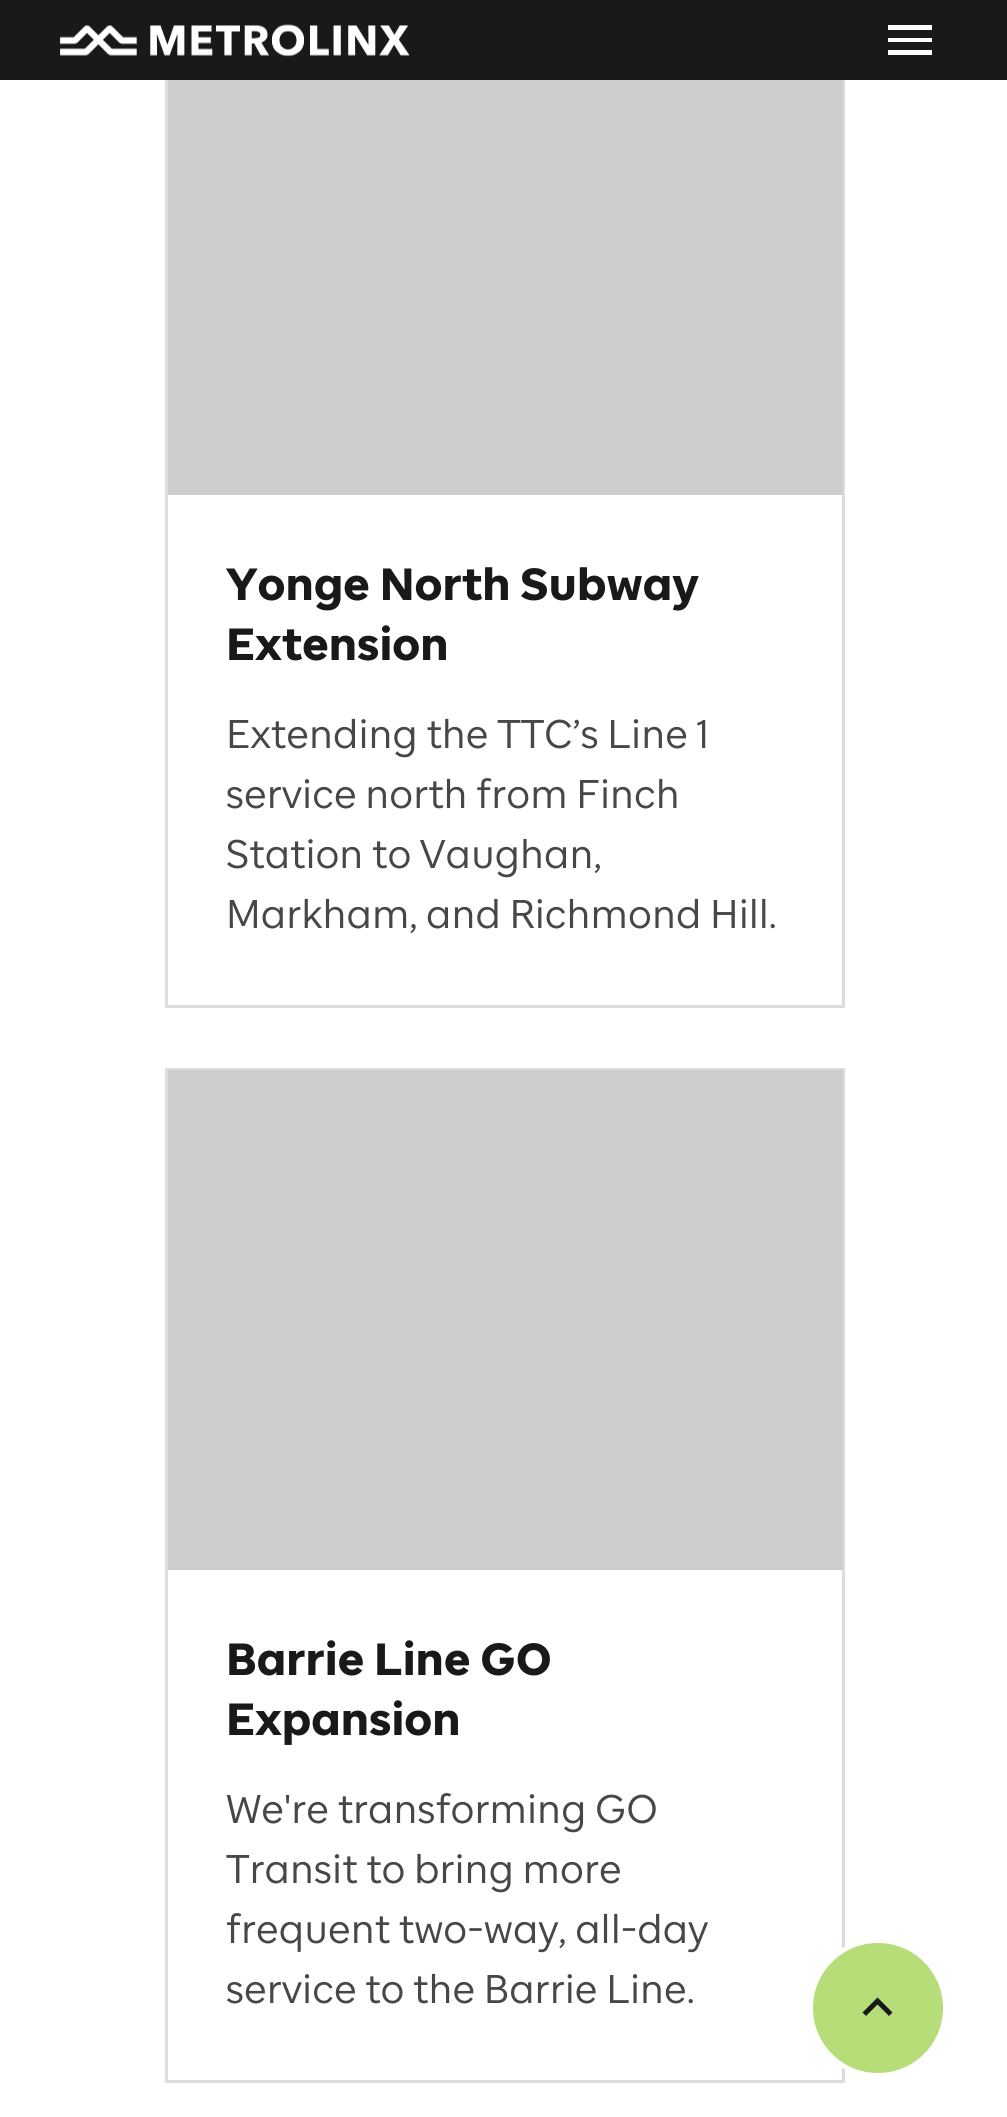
#include <cairo.h>
#include <math.h>
#include <stddef.h>


static void picture(cairo_t *cr, const char *path, double x, double y, double w, double h) {
    cairo_surface_t *image = cairo_image_surface_create_from_png(path);
    cairo_save(cr);
    cairo_set_source_surface(cr, image, x, y);
    cairo_rectangle(cr, x, y, w, h);
    cairo_fill(cr);
    cairo_restore(cr);
    cairo_surface_destroy(image);
}

int main(void) {
    cairo_surface_t *surface = cairo_image_surface_create(CAIRO_FORMAT_RGB24, 1007, 2117);
    cairo_t *cr = cairo_create(surface);
    cairo_font_options_t *options = cairo_font_options_create();
    cairo_font_options_set_hint_metrics(options, CAIRO_HINT_METRICS_OFF);
    cairo_font_options_set_hint_style(options, CAIRO_HINT_STYLE_NONE);
    cairo_set_font_options(cr, options);
    cairo_set_miter_limit(cr, 4);
    cairo_set_source_rgb(cr, 1, 1, 1);
    cairo_paint(cr);
    cairo_rectangle(cr, 166.5, -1.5, 677, 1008);
    cairo_set_source_rgb(cr, 0.863, 0.863, 0.863);
    cairo_set_line_width(cr, 3);
    cairo_stroke(cr);
    cairo_set_source_rgb(cr, 0.098, 0.098, 0.098);
    cairo_rectangle(cr, 0, 0, 1007, 80);
    cairo_fill(cr);
    picture(cr, "img1.png", 60, 24, 350, 33);
    cairo_set_source_rgb(cr, 1, 1, 1);
    cairo_new_path(cr);
    cairo_move_to(cr, 888, 55);
    cairo_line_to(cr, 932, 55);
    cairo_line_to(cr, 932, 50);
    cairo_line_to(cr, 888, 50);
    cairo_close_path(cr);
    cairo_move_to(cr, 888, 42);
    cairo_line_to(cr, 932, 42);
    cairo_line_to(cr, 932, 38);
    cairo_line_to(cr, 888, 38);
    cairo_close_path(cr);
    cairo_move_to(cr, 888, 25);
    cairo_line_to(cr, 888, 30);
    cairo_line_to(cr, 932, 30);
    cairo_line_to(cr, 932, 25);
    cairo_close_path(cr);
    cairo_fill(cr);
    cairo_set_source_rgb(cr, 0.804, 0.804, 0.804);
    cairo_rectangle(cr, 168, 80, 675, 415);
    cairo_fill(cr);
    cairo_select_font_face(cr, "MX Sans", CAIRO_FONT_SLANT_NORMAL, CAIRO_FONT_WEIGHT_BOLD);
    cairo_set_font_size(cr, 45);
    cairo_set_source_rgb(cr, 0.098, 0.098, 0.098);
    cairo_move_to(cr, 226, 600);
    cairo_show_text(cr, "Yonge North Subway");
    cairo_move_to(cr, 226, 660);
    cairo_show_text(cr, "Extension");
    cairo_select_font_face(cr, "MX Sans", CAIRO_FONT_SLANT_NORMAL, CAIRO_FONT_WEIGHT_NORMAL);
    cairo_set_font_size(cr, 40);
    cairo_set_source_rgb(cr, 0.278, 0.278, 0.278);
    cairo_move_to(cr, 226, 748);
    cairo_show_text(cr, "Extending the TTC’s Line 1");
    cairo_move_to(cr, 226, 808);
    cairo_show_text(cr, "service north from Finch");
    cairo_move_to(cr, 226, 868);
    cairo_show_text(cr, "Station to Vaughan,");
    cairo_move_to(cr, 226, 928);
    cairo_show_text(cr, "Markham, and Richmond Hill.");
    cairo_rectangle(cr, 166.5, 1069.5, 677, 1012);
    cairo_set_source_rgb(cr, 0.863, 0.863, 0.863);
    cairo_stroke(cr);
    cairo_set_source_rgb(cr, 0.804, 0.804, 0.804);
    cairo_rectangle(cr, 168, 1070, 675, 500);
    cairo_fill(cr);
    cairo_select_font_face(cr, "MX Sans", CAIRO_FONT_SLANT_NORMAL, CAIRO_FONT_WEIGHT_BOLD);
    cairo_set_font_size(cr, 45);
    cairo_set_source_rgb(cr, 0.098, 0.098, 0.098);
    cairo_move_to(cr, 226, 1675);
    cairo_show_text(cr, "Barrie Line GO");
    cairo_move_to(cr, 226, 1735);
    cairo_show_text(cr, "Expansion");
    cairo_select_font_face(cr, "MX Sans", CAIRO_FONT_SLANT_NORMAL, CAIRO_FONT_WEIGHT_NORMAL);
    cairo_set_font_size(cr, 40);
    cairo_set_source_rgb(cr, 0.278, 0.278, 0.278);
    cairo_move_to(cr, 226, 1823);
    cairo_show_text(cr, "We're transforming GO");
    cairo_move_to(cr, 226, 1883);
    cairo_show_text(cr, "Transit to bring more");
    cairo_move_to(cr, 226, 1943);
    cairo_show_text(cr, "frequent two-way, all-day");
    cairo_move_to(cr, 226, 2003);
    cairo_show_text(cr, "service to the Barrie Line.");
    cairo_set_source_rgb(cr, 0.718, 0.867, 0.475);
    cairo_new_path(cr);
    cairo_arc(cr, 878, 2008, 67.5, 0, 2 * M_PI);
    cairo_fill_preserve(cr);
    cairo_set_source_rgb(cr, 1, 1, 1);
    cairo_set_line_width(cr, 5);
    cairo_stroke(cr);
    cairo_set_source_rgb(cr, 0.098, 0.098, 0.098);
    cairo_new_path(cr);
    cairo_move_to(cr, 877.5, 1997.5);
    cairo_line_to(cr, 862.5, 2012.5);
    cairo_line_to(cr, 866, 2016);
    cairo_line_to(cr, 877.5, 2004.5);
    cairo_line_to(cr, 889, 2016);
    cairo_line_to(cr, 892.5, 2012.5);
    cairo_close_path(cr);
    cairo_fill(cr);
    cairo_surface_write_to_png(surface, "page.png");
    cairo_font_options_destroy(options);
    cairo_destroy(cr);
    cairo_surface_destroy(surface);
    return 0;
}
